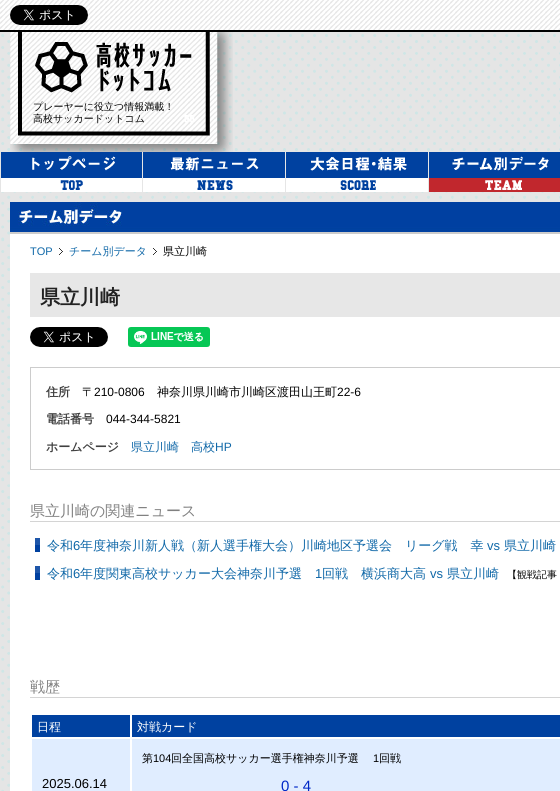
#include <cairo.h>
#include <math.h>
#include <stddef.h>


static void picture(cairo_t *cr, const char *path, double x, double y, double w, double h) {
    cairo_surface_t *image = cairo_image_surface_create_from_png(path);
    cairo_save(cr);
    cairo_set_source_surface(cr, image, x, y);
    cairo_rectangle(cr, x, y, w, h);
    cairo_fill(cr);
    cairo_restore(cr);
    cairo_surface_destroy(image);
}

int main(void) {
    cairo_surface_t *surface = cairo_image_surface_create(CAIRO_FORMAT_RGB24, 560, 791);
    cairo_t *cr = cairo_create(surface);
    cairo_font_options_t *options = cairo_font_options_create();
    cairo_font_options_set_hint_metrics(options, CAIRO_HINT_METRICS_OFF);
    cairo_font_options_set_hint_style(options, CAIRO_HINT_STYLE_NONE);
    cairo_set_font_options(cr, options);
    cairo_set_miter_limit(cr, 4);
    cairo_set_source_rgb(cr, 0.898, 0.898, 0.898);
    cairo_paint(cr);
    picture(cr, "img1.png", 1, 34, 559, 757);
    picture(cr, "img2.png", 0, 0, 560, 30);
    cairo_set_source_rgb(cr, 0, 0, 0);
    cairo_rectangle(cr, 0, 30, 560, 2);
    cairo_fill(cr);
    picture(cr, "img3.png", 10, 5, 78, 20);
    picture(cr, "img4.png", 10, 32, 223, 120);
    picture(cr, "img5.png", 35, 42, 157, 51);
    cairo_select_font_face(cr, "WenQuanYi Zen Hei Medium", CAIRO_FONT_SLANT_NORMAL, CAIRO_FONT_WEIGHT_NORMAL);
    cairo_set_font_size(cr, 10);
    cairo_move_to(cr, 33, 110);
    cairo_show_text(cr, "プレーヤーに役立つ情報満載！");
    cairo_move_to(cr, 33, 122);
    cairo_show_text(cr, "高校サッカードットコム");
    picture(cr, "img6.png", 1, 152, 141, 40);
    cairo_set_source_rgb(cr, 0.902, 0.902, 0.902);
    cairo_rectangle(cr, 142, 161, 1, 31);
    cairo_fill(cr);
    picture(cr, "img7.png", 143, 152, 142, 40);
    cairo_rectangle(cr, 285, 152, 1, 40);
    cairo_fill(cr);
    picture(cr, "img8.png", 286, 152, 142, 40);
    cairo_rectangle(cr, 428, 152, 1, 40);
    cairo_fill(cr);
    picture(cr, "img9.png", 429, 152, 131, 40);
    cairo_set_source_rgb(cr, 1, 1, 1);
    cairo_rectangle(cr, 10, 234, 550, 557);
    cairo_fill(cr);
    picture(cr, "img10.png", 10, 202, 550, 32);
    picture(cr, "img11.png", 59, 248, 4, 7);
    cairo_select_font_face(cr, "Liberation Sans", CAIRO_FONT_SLANT_NORMAL, CAIRO_FONT_WEIGHT_NORMAL);
    cairo_set_font_size(cr, 11);
    cairo_set_source_rgb(cr, 0.063, 0.408, 0.659);
    cairo_move_to(cr, 30, 255);
    cairo_show_text(cr, "TOP");
    picture(cr, "img11.png", 153, 248, 4, 7);
    cairo_select_font_face(cr, "WenQuanYi Zen Hei Medium", CAIRO_FONT_SLANT_NORMAL, CAIRO_FONT_WEIGHT_NORMAL);
    cairo_move_to(cr, 69, 255);
    cairo_show_text(cr, "チーム別データ");
    cairo_set_source_rgb(cr, 0, 0, 0);
    cairo_move_to(cr, 163, 255);
    cairo_show_text(cr, "県立川崎");
    cairo_set_source_rgb(cr, 0.906, 0.906, 0.906);
    cairo_rectangle(cr, 30, 273, 530, 44);
    cairo_fill(cr);
    cairo_select_font_face(cr, "WenQuanYi Zen Hei", CAIRO_FONT_SLANT_NORMAL, CAIRO_FONT_WEIGHT_BOLD);
    cairo_set_font_size(cr, 20);
    cairo_set_source_rgb(cr, 0.133, 0.133, 0.133);
    cairo_move_to(cr, 40, 304);
    cairo_show_text(cr, "県立川崎");
    picture(cr, "img12.png", 30, 327, 78, 20);
    picture(cr, "img13.png", 128, 327, 82, 20);
    cairo_rectangle(cr, 30.5, 367.5, 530, 102);
    cairo_set_source_rgb(cr, 0.8, 0.8, 0.8);
    cairo_set_line_width(cr, 1);
    cairo_stroke(cr);
    cairo_set_font_size(cr, 12);
    cairo_set_source_rgb(cr, 0.251, 0.251, 0.251);
    cairo_move_to(cr, 46, 396);
    cairo_show_text(cr, "住所");
    cairo_select_font_face(cr, "WenQuanYi Zen Hei Medium", CAIRO_FONT_SLANT_NORMAL, CAIRO_FONT_WEIGHT_NORMAL);
    cairo_set_source_rgb(cr, 0, 0, 0);
    cairo_move_to(cr, 82, 396);
    cairo_show_text(cr, "〒");
    cairo_select_font_face(cr, "Liberation Sans", CAIRO_FONT_SLANT_NORMAL, CAIRO_FONT_WEIGHT_NORMAL);
    cairo_move_to(cr, 94, 396);
    cairo_show_text(cr, "210-0806");
    cairo_select_font_face(cr, "WenQuanYi Zen Hei Medium", CAIRO_FONT_SLANT_NORMAL, CAIRO_FONT_WEIGHT_NORMAL);
    cairo_move_to(cr, 157, 396);
    cairo_show_text(cr, "神奈川県川崎市川崎区渡田山王町");
    cairo_select_font_face(cr, "Liberation Sans", CAIRO_FONT_SLANT_NORMAL, CAIRO_FONT_WEIGHT_NORMAL);
    cairo_move_to(cr, 337, 396);
    cairo_show_text(cr, "22-6");
    cairo_select_font_face(cr, "WenQuanYi Zen Hei", CAIRO_FONT_SLANT_NORMAL, CAIRO_FONT_WEIGHT_BOLD);
    cairo_set_source_rgb(cr, 0.251, 0.251, 0.251);
    cairo_move_to(cr, 46, 423);
    cairo_show_text(cr, "電話番号");
    cairo_select_font_face(cr, "Liberation Sans", CAIRO_FONT_SLANT_NORMAL, CAIRO_FONT_WEIGHT_NORMAL);
    cairo_set_source_rgb(cr, 0, 0, 0);
    cairo_move_to(cr, 106, 423);
    cairo_show_text(cr, "044-344-5821");
    cairo_select_font_face(cr, "WenQuanYi Zen Hei", CAIRO_FONT_SLANT_NORMAL, CAIRO_FONT_WEIGHT_BOLD);
    cairo_set_source_rgb(cr, 0.251, 0.251, 0.251);
    cairo_move_to(cr, 46, 451);
    cairo_show_text(cr, "ホームページ");
    cairo_select_font_face(cr, "WenQuanYi Zen Hei Medium", CAIRO_FONT_SLANT_NORMAL, CAIRO_FONT_WEIGHT_NORMAL);
    cairo_set_source_rgb(cr, 0.063, 0.408, 0.659);
    cairo_move_to(cr, 131, 451);
    cairo_show_text(cr, "県立川崎　高校");
    cairo_select_font_face(cr, "Liberation Sans", CAIRO_FONT_SLANT_NORMAL, CAIRO_FONT_WEIGHT_NORMAL);
    cairo_move_to(cr, 215, 451);
    cairo_show_text(cr, "HP");
    cairo_set_source_rgb(cr, 0.831, 0.831, 0.831);
    cairo_rectangle(cr, 30, 521, 530, 1);
    cairo_fill(cr);
    cairo_select_font_face(cr, "WenQuanYi Zen Hei Medium", CAIRO_FONT_SLANT_NORMAL, CAIRO_FONT_WEIGHT_NORMAL);
    cairo_set_font_size(cr, 15);
    cairo_set_source_rgb(cr, 0.502, 0.502, 0.502);
    cairo_move_to(cr, 30, 516);
    cairo_show_text(cr, "県立川崎の関連ニュース");
    picture(cr, "img14.png", 35, 538, 5, 14);
    cairo_set_font_size(cr, 13);
    cairo_set_source_rgb(cr, 0.063, 0.408, 0.659);
    cairo_move_to(cr, 47, 550);
    cairo_show_text(cr, "令和");
    cairo_select_font_face(cr, "Liberation Sans", CAIRO_FONT_SLANT_NORMAL, CAIRO_FONT_WEIGHT_NORMAL);
    cairo_move_to(cr, 73, 550);
    cairo_show_text(cr, "6");
    cairo_select_font_face(cr, "WenQuanYi Zen Hei Medium", CAIRO_FONT_SLANT_NORMAL, CAIRO_FONT_WEIGHT_NORMAL);
    cairo_move_to(cr, 80, 550);
    cairo_show_text(cr, "年度神奈川新人戦（新人選手権大会）川崎地区予選会　リーグ戦　幸");
    cairo_select_font_face(cr, "Liberation Sans", CAIRO_FONT_SLANT_NORMAL, CAIRO_FONT_WEIGHT_NORMAL);
    cairo_move_to(cr, 487, 550);
    cairo_show_text(cr, "vs");
    cairo_select_font_face(cr, "WenQuanYi Zen Hei Medium", CAIRO_FONT_SLANT_NORMAL, CAIRO_FONT_WEIGHT_NORMAL);
    cairo_move_to(cr, 504, 550);
    cairo_show_text(cr, "県立川崎");
    picture(cr, "img14.png", 35, 566, 5, 14);
    cairo_move_to(cr, 47, 578);
    cairo_show_text(cr, "令和");
    cairo_select_font_face(cr, "Liberation Sans", CAIRO_FONT_SLANT_NORMAL, CAIRO_FONT_WEIGHT_NORMAL);
    cairo_move_to(cr, 73, 578);
    cairo_show_text(cr, "6");
    cairo_select_font_face(cr, "WenQuanYi Zen Hei Medium", CAIRO_FONT_SLANT_NORMAL, CAIRO_FONT_WEIGHT_NORMAL);
    cairo_move_to(cr, 80, 578);
    cairo_show_text(cr, "年度関東高校サッカー大会神奈川予選");
    cairo_select_font_face(cr, "Liberation Sans", CAIRO_FONT_SLANT_NORMAL, CAIRO_FONT_WEIGHT_NORMAL);
    cairo_move_to(cr, 315, 578);
    cairo_show_text(cr, "1");
    cairo_select_font_face(cr, "WenQuanYi Zen Hei Medium", CAIRO_FONT_SLANT_NORMAL, CAIRO_FONT_WEIGHT_NORMAL);
    cairo_move_to(cr, 322, 578);
    cairo_show_text(cr, "回戦　横浜商大高");
    cairo_select_font_face(cr, "Liberation Sans", CAIRO_FONT_SLANT_NORMAL, CAIRO_FONT_WEIGHT_NORMAL);
    cairo_move_to(cr, 430, 578);
    cairo_show_text(cr, "vs");
    cairo_select_font_face(cr, "WenQuanYi Zen Hei Medium", CAIRO_FONT_SLANT_NORMAL, CAIRO_FONT_WEIGHT_NORMAL);
    cairo_move_to(cr, 447, 578);
    cairo_show_text(cr, "県立川崎");
    cairo_set_font_size(cr, 10);
    cairo_set_source_rgb(cr, 0, 0, 0);
    cairo_move_to(cr, 507, 578);
    cairo_show_text(cr, "【観戦記事");
    cairo_set_source_rgb(cr, 0.831, 0.831, 0.831);
    cairo_rectangle(cr, 30, 697, 530, 1);
    cairo_fill(cr);
    cairo_set_font_size(cr, 15);
    cairo_set_source_rgb(cr, 0.502, 0.502, 0.502);
    cairo_move_to(cr, 30, 692);
    cairo_show_text(cr, "戦歴");
    cairo_set_source_rgb(cr, 0, 0.255, 0.627);
    cairo_rectangle(cr, 32, 715, 98, 22);
    cairo_fill(cr);
    cairo_set_font_size(cr, 12);
    cairo_set_source_rgb(cr, 1, 1, 1);
    cairo_move_to(cr, 37, 731);
    cairo_show_text(cr, "日程");
    cairo_set_source_rgb(cr, 0, 0.255, 0.627);
    cairo_rectangle(cr, 132, 715, 428, 22);
    cairo_fill(cr);
    cairo_set_source_rgb(cr, 1, 1, 1);
    cairo_move_to(cr, 137, 731);
    cairo_show_text(cr, "対戦カード");
    cairo_set_source_rgb(cr, 0.878, 0.929, 1);
    cairo_rectangle(cr, 132, 739, 428, 28);
    cairo_fill(cr);
    cairo_set_font_size(cr, 11);
    cairo_set_source_rgb(cr, 0, 0, 0);
    cairo_move_to(cr, 142, 762);
    cairo_show_text(cr, "第");
    cairo_select_font_face(cr, "Liberation Sans", CAIRO_FONT_SLANT_NORMAL, CAIRO_FONT_WEIGHT_NORMAL);
    cairo_move_to(cr, 153, 762);
    cairo_show_text(cr, "104");
    cairo_select_font_face(cr, "WenQuanYi Zen Hei Medium", CAIRO_FONT_SLANT_NORMAL, CAIRO_FONT_WEIGHT_NORMAL);
    cairo_move_to(cr, 171, 762);
    cairo_show_text(cr, "回全国高校サッカー選手権神奈川予選");
    cairo_select_font_face(cr, "Liberation Sans", CAIRO_FONT_SLANT_NORMAL, CAIRO_FONT_WEIGHT_NORMAL);
    cairo_move_to(cr, 373, 762);
    cairo_show_text(cr, "1");
    cairo_select_font_face(cr, "WenQuanYi Zen Hei Medium", CAIRO_FONT_SLANT_NORMAL, CAIRO_FONT_WEIGHT_NORMAL);
    cairo_move_to(cr, 379, 762);
    cairo_show_text(cr, "回戦");
    cairo_set_source_rgb(cr, 0.878, 0.929, 1);
    cairo_rectangle(cr, 32, 739, 98, 52);
    cairo_fill(cr);
    cairo_select_font_face(cr, "Liberation Sans", CAIRO_FONT_SLANT_NORMAL, CAIRO_FONT_WEIGHT_NORMAL);
    cairo_set_font_size(cr, 13);
    cairo_set_source_rgb(cr, 0, 0, 0);
    cairo_move_to(cr, 42, 788);
    cairo_show_text(cr, "2025.06.14");
    cairo_set_source_rgb(cr, 0.878, 0.929, 1);
    cairo_rectangle(cr, 132, 767, 428, 24);
    cairo_fill(cr);
    cairo_set_font_size(cr, 15);
    cairo_set_source_rgb(cr, 0, 0.153, 0.78);
    cairo_move_to(cr, 281, 791);
    cairo_show_text(cr, "0 - 4");
    cairo_surface_write_to_png(surface, "page.png");
    cairo_font_options_destroy(options);
    cairo_destroy(cr);
    cairo_surface_destroy(surface);
    return 0;
}
